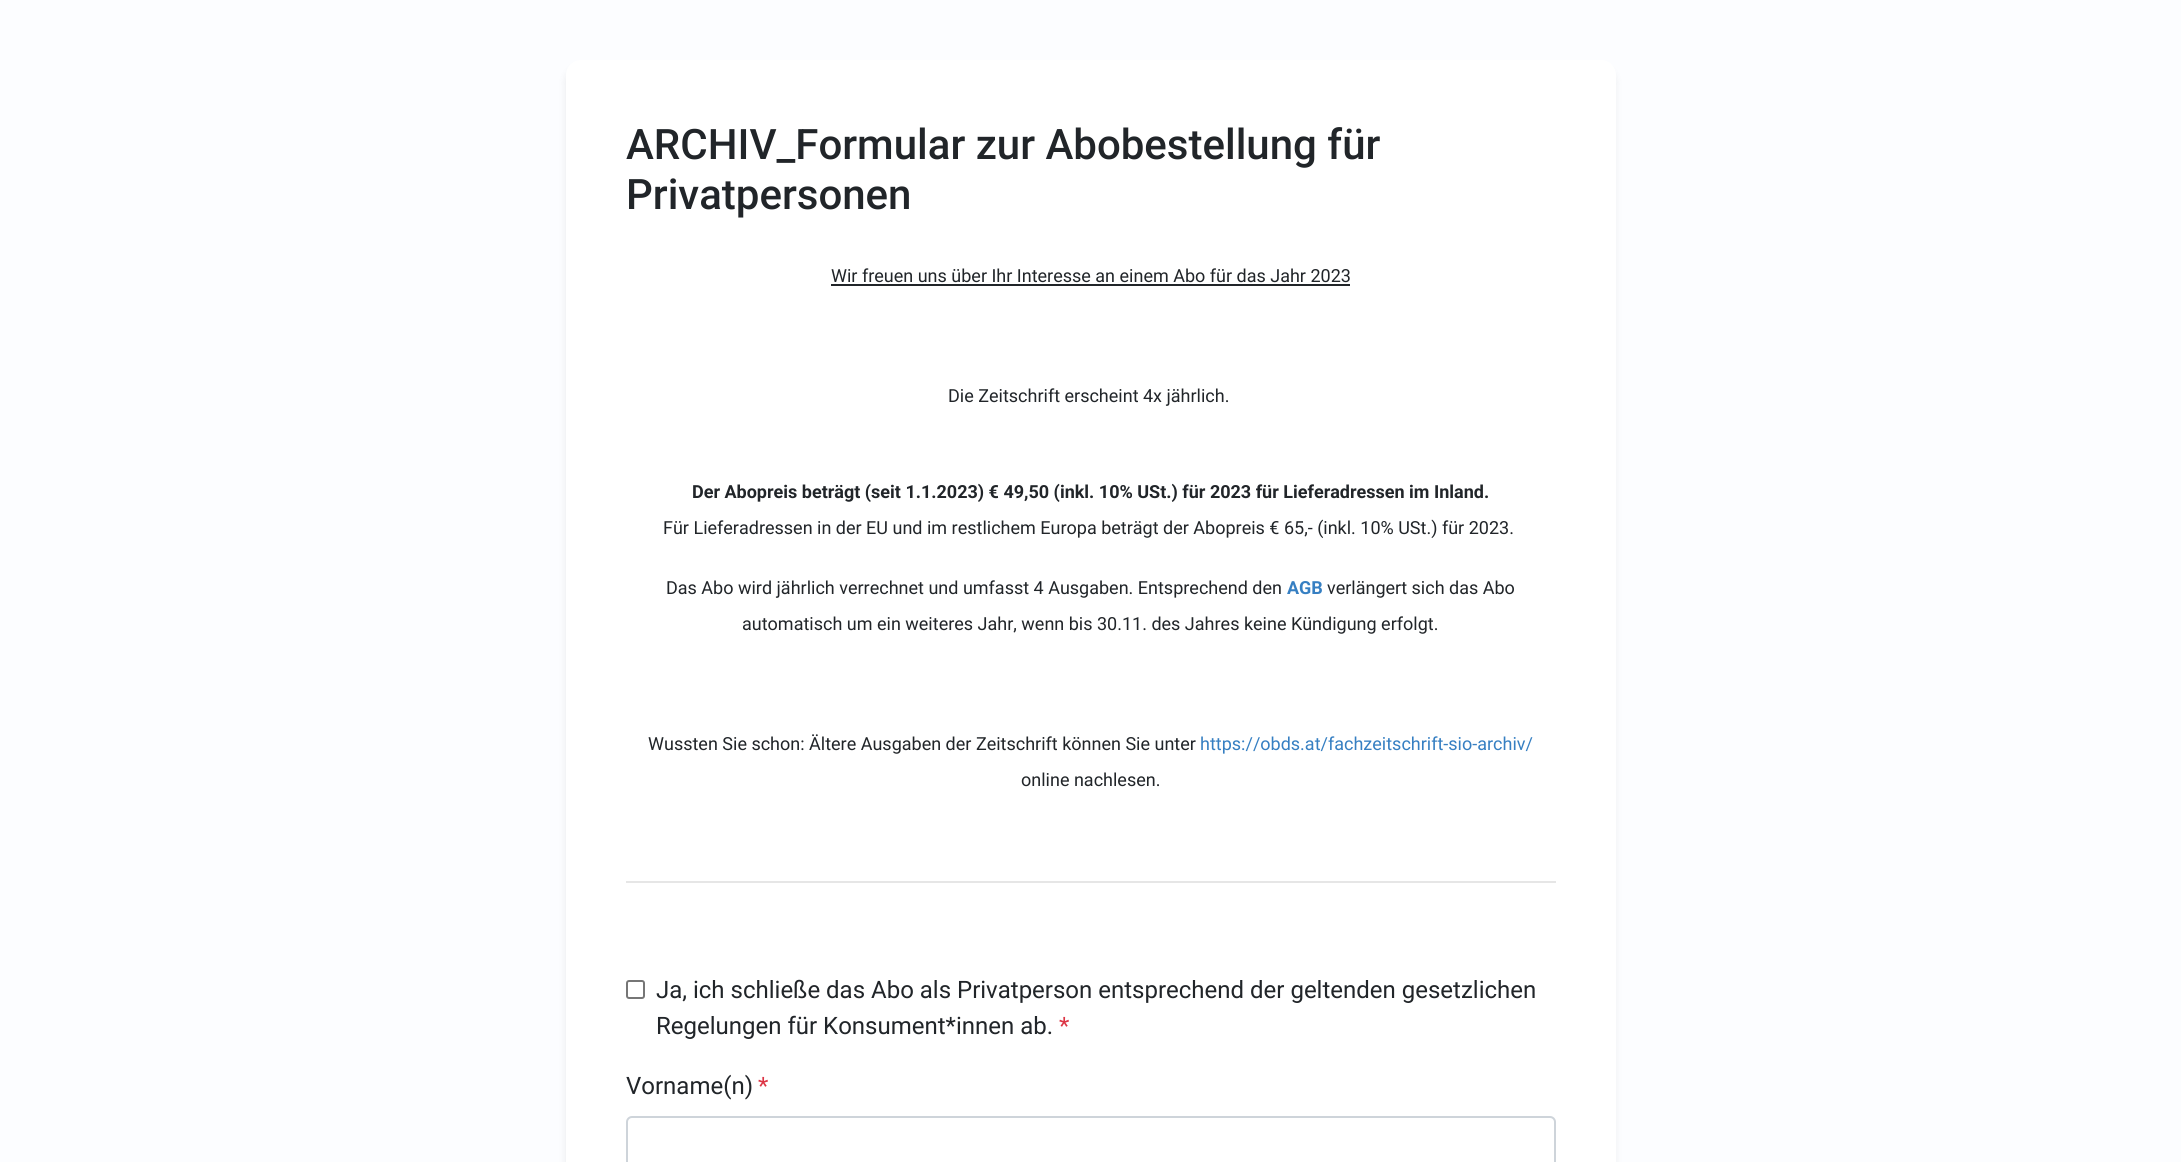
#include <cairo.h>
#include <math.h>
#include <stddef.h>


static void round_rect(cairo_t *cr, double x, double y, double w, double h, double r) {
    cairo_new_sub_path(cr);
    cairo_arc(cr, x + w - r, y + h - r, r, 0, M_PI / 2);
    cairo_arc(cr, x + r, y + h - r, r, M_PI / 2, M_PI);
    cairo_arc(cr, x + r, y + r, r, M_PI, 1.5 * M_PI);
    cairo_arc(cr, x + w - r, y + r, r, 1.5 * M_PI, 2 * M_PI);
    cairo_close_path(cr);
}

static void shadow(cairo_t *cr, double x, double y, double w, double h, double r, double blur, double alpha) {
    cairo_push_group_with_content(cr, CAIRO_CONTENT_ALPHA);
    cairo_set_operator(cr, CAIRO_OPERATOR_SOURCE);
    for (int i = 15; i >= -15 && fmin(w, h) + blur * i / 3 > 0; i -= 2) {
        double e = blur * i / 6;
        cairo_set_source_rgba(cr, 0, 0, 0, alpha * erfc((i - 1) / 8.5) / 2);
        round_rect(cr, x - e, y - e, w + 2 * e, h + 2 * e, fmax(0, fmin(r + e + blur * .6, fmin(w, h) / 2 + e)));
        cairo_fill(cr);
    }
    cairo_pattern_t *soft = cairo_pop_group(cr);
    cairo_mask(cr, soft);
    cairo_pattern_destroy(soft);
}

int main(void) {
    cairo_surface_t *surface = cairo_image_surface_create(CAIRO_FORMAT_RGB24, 2181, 1162);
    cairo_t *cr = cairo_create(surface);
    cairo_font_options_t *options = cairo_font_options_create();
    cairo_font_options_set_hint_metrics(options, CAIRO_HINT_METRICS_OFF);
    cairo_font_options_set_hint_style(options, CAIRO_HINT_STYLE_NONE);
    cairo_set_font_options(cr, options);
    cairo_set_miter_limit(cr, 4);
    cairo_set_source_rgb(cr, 0.988, 0.992, 1);
    cairo_paint(cr);
    cairo_set_source_rgb(cr, 0, 0, 0);
    shadow(cr, 567, 68, 1047, 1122, 14, 4.5, 0.1);
    cairo_set_source_rgb(cr, 1, 1, 1);
    round_rect(cr, 566, 60, 1050, 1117, 15);
    cairo_fill(cr);
    cairo_select_font_face(cr, "Roboto Medium", CAIRO_FONT_SLANT_NORMAL, CAIRO_FONT_WEIGHT_NORMAL);
    cairo_set_font_size(cr, 42);
    cairo_set_source_rgb(cr, 0.129, 0.145, 0.161);
    cairo_move_to(cr, 626, 159);
    cairo_show_text(cr, "ARCHIV_Formular zur Abobestellung für");
    cairo_move_to(cr, 626, 209);
    cairo_show_text(cr, "Privatpersonen");
    cairo_select_font_face(cr, "Roboto", CAIRO_FONT_SLANT_NORMAL, CAIRO_FONT_WEIGHT_NORMAL);
    cairo_set_font_size(cr, 18);
    cairo_move_to(cr, 831, 282);
    cairo_show_text(cr, "Wir freuen uns über Ihr Interesse an einem Abo für das Jahr 2023");
    cairo_rectangle(cr, 831, 284, 519, 2);
    cairo_fill(cr);
    cairo_move_to(cr, 948, 402);
    cairo_show_text(cr, "Die Zeitschrift erscheint 4x jährlich.");
    cairo_select_font_face(cr, "Roboto", CAIRO_FONT_SLANT_NORMAL, CAIRO_FONT_WEIGHT_BOLD);
    cairo_move_to(cr, 692, 498);
    cairo_show_text(cr, "Der Abopreis beträgt (seit 1.1.2023) € 49,50 (inkl. 10% USt.) für 2023 für Lieferadressen im Inland.");
    cairo_select_font_face(cr, "Roboto", CAIRO_FONT_SLANT_NORMAL, CAIRO_FONT_WEIGHT_NORMAL);
    cairo_move_to(cr, 663, 534);
    cairo_show_text(cr, "Für Lieferadressen in der EU und im restlichem Europa beträgt der Abopreis € 65,- (inkl. 10% USt.) für 2023.");
    cairo_move_to(cr, 666, 594);
    cairo_show_text(cr, "Das Abo wird jährlich verrechnet und umfasst 4 Ausgaben. Entsprechend den");
    cairo_select_font_face(cr, "Roboto", CAIRO_FONT_SLANT_NORMAL, CAIRO_FONT_WEIGHT_BOLD);
    cairo_set_source_rgb(cr, 0.212, 0.498, 0.761);
    cairo_move_to(cr, 1287, 594);
    cairo_show_text(cr, "AGB");
    cairo_select_font_face(cr, "Roboto", CAIRO_FONT_SLANT_NORMAL, CAIRO_FONT_WEIGHT_NORMAL);
    cairo_set_source_rgb(cr, 0.129, 0.145, 0.161);
    cairo_move_to(cr, 1327, 594);
    cairo_show_text(cr, "verlängert sich das Abo");
    cairo_move_to(cr, 742, 630);
    cairo_show_text(cr, "automatisch um ein weiteres Jahr, wenn bis 30.11. des Jahres keine Kündigung erfolgt.");
    cairo_move_to(cr, 648, 750);
    cairo_show_text(cr, "Wussten Sie schon: Ältere Ausgaben der Zeitschrift können Sie unter");
    cairo_set_source_rgb(cr, 0.212, 0.498, 0.761);
    cairo_move_to(cr, 1200, 750);
    cairo_show_text(cr, "https://obds.at/fachzeitschrift-sio-archiv/");
    cairo_set_source_rgb(cr, 0.129, 0.145, 0.161);
    cairo_move_to(cr, 1021, 786);
    cairo_show_text(cr, "online nachlesen.");
    cairo_set_source_rgb(cr, 0.902, 0.902, 0.902);
    cairo_rectangle(cr, 626, 881, 930, 2);
    cairo_fill(cr);
    round_rect(cr, 627, 981, 17, 17, 2);
    cairo_set_source_rgb(cr, 0.463, 0.463, 0.463);
    cairo_stroke(cr);
    cairo_set_font_size(cr, 24);
    cairo_set_source_rgb(cr, 0.129, 0.145, 0.161);
    cairo_move_to(cr, 656, 998);
    cairo_show_text(cr, "Ja, ich schließe das Abo als Privatperson entsprechend der geltenden gesetzlichen");
    cairo_move_to(cr, 656, 1034);
    cairo_show_text(cr, "Regelungen für Konsument*innen ab.");
    cairo_set_source_rgb(cr, 0.863, 0.208, 0.271);
    cairo_move_to(cr, 1059, 1034);
    cairo_show_text(cr, "*");
    cairo_set_source_rgb(cr, 0.129, 0.145, 0.161);
    cairo_move_to(cr, 626, 1094);
    cairo_show_text(cr, "Vorname(n)");
    cairo_set_source_rgb(cr, 0.863, 0.208, 0.271);
    cairo_move_to(cr, 758, 1094);
    cairo_show_text(cr, "*");
    round_rect(cr, 627, 1117, 928, 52, 5);
    cairo_set_source_rgb(cr, 0.808, 0.831, 0.855);
    cairo_stroke(cr);
    cairo_surface_write_to_png(surface, "page.png");
    cairo_font_options_destroy(options);
    cairo_destroy(cr);
    cairo_surface_destroy(surface);
    return 0;
}
